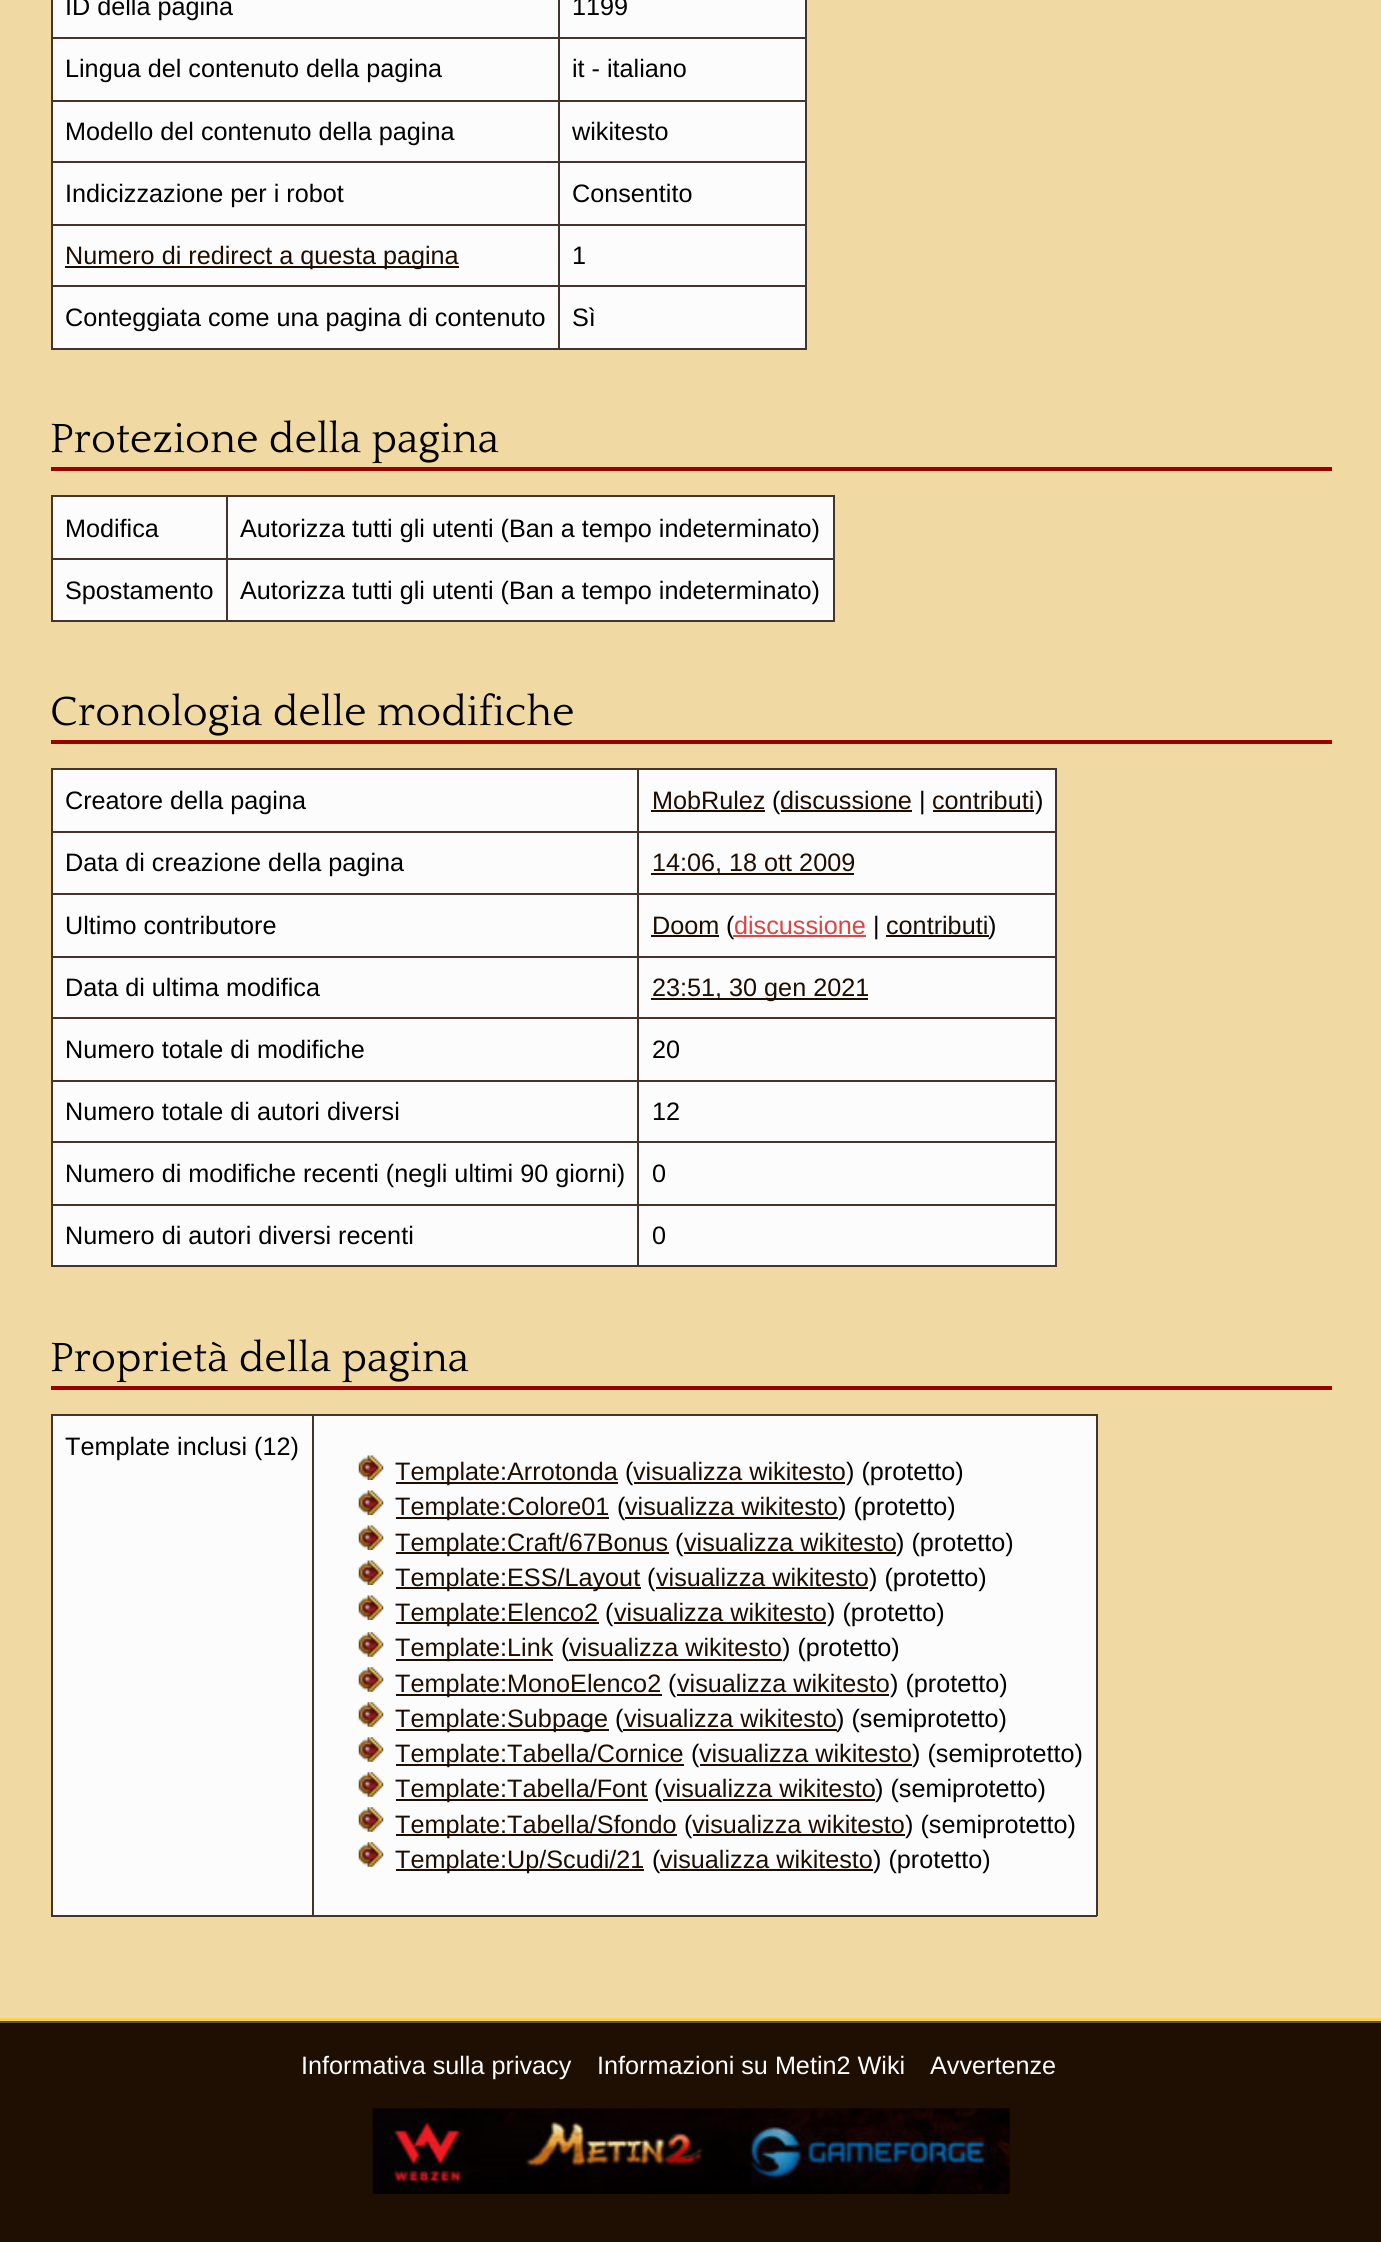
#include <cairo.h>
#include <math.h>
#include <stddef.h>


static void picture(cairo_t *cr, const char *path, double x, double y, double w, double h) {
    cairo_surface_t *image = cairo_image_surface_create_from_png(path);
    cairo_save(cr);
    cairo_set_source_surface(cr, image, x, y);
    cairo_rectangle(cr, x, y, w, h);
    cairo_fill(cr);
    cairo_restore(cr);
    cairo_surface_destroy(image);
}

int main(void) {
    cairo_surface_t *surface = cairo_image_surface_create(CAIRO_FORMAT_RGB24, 1381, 2242);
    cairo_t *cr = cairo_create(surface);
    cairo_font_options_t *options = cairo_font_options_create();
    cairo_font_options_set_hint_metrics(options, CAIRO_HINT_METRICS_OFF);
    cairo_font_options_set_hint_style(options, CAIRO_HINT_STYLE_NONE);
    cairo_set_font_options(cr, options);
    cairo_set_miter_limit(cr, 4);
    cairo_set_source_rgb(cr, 0.996, 0.808, 0.345);
    cairo_paint(cr);
    cairo_set_source_rgb(cr, 0.941, 0.851, 0.635);
    cairo_rectangle(cr, 0, 0, 1381, 2018);
    cairo_fill(cr);
    cairo_set_source_rgb(cr, 0.988, 0.988, 0.988);
    cairo_rectangle(cr, 53, 0, 752, 348);
    cairo_fill(cr);
    cairo_select_font_face(cr, "Liberation Sans", CAIRO_FONT_SLANT_NORMAL, CAIRO_FONT_WEIGHT_NORMAL);
    cairo_set_font_size(cr, 25.2);
    cairo_set_source_rgb(cr, 0, 0, 0);
    cairo_move_to(cr, 65, 15);
    cairo_show_text(cr, "ID della pagina");
    cairo_set_source_rgb(cr, 0.271, 0.204, 0.173);
    cairo_rectangle(cr, 558, 37, 249, 2);
    cairo_fill(cr);
    cairo_rectangle(cr, 558, 100, 249, 2);
    cairo_fill(cr);
    cairo_rectangle(cr, 558, 161, 249, 2);
    cairo_fill(cr);
    cairo_rectangle(cr, 558, 224, 249, 2);
    cairo_fill(cr);
    cairo_rectangle(cr, 558, 285, 249, 2);
    cairo_fill(cr);
    cairo_rectangle(cr, 805, 285, 2, 65);
    cairo_fill(cr);
    cairo_rectangle(cr, 558, 348, 249, 2);
    cairo_fill(cr);
    cairo_rectangle(cr, 558, 285, 2, 65);
    cairo_fill(cr);
    cairo_rectangle(cr, 51, 285, 509, 2);
    cairo_fill(cr);
    cairo_rectangle(cr, 558, 224, 2, 63);
    cairo_fill(cr);
    cairo_rectangle(cr, 51, 224, 509, 2);
    cairo_fill(cr);
    cairo_rectangle(cr, 558, 161, 2, 65);
    cairo_fill(cr);
    cairo_rectangle(cr, 51, 161, 509, 2);
    cairo_fill(cr);
    cairo_rectangle(cr, 558, 100, 2, 63);
    cairo_fill(cr);
    cairo_rectangle(cr, 51, 100, 509, 2);
    cairo_fill(cr);
    cairo_rectangle(cr, 558, 37, 2, 65);
    cairo_fill(cr);
    cairo_rectangle(cr, 51, 37, 509, 2);
    cairo_fill(cr);
    cairo_rectangle(cr, 558, 0, 2, 39);
    cairo_fill(cr);
    cairo_set_source_rgb(cr, 0, 0, 0);
    cairo_move_to(cr, 572, 15);
    cairo_show_text(cr, "1199");
    cairo_set_source_rgb(cr, 0.271, 0.204, 0.173);
    cairo_rectangle(cr, 51, 348, 509, 2);
    cairo_fill(cr);
    cairo_rectangle(cr, 51, 285, 2, 65);
    cairo_fill(cr);
    cairo_rectangle(cr, 51, 224, 2, 63);
    cairo_fill(cr);
    cairo_rectangle(cr, 51, 161, 2, 65);
    cairo_fill(cr);
    cairo_rectangle(cr, 51, 100, 2, 63);
    cairo_fill(cr);
    cairo_rectangle(cr, 51, 0, 2, 102);
    cairo_fill(cr);
    cairo_set_source_rgb(cr, 0, 0, 0);
    cairo_move_to(cr, 65, 77);
    cairo_show_text(cr, "Lingua del contenuto della pagina");
    cairo_set_source_rgb(cr, 0.271, 0.204, 0.173);
    cairo_rectangle(cr, 805, 224, 2, 63);
    cairo_fill(cr);
    cairo_rectangle(cr, 805, 161, 2, 65);
    cairo_fill(cr);
    cairo_rectangle(cr, 805, 100, 2, 63);
    cairo_fill(cr);
    cairo_rectangle(cr, 805, 0, 2, 102);
    cairo_fill(cr);
    cairo_set_source_rgb(cr, 0, 0, 0);
    cairo_move_to(cr, 572, 77);
    cairo_show_text(cr, "it - italiano");
    cairo_move_to(cr, 65, 140);
    cairo_show_text(cr, "Modello del contenuto della pagina");
    cairo_move_to(cr, 572, 140);
    cairo_show_text(cr, "wikitesto");
    cairo_move_to(cr, 65, 202);
    cairo_show_text(cr, "Indicizzazione per i robot");
    cairo_move_to(cr, 572, 202);
    cairo_show_text(cr, "Consentito");
    cairo_set_source_rgb(cr, 0.118, 0.051, 0);
    cairo_rectangle(cr, 65, 266, 394, 2);
    cairo_fill(cr);
    cairo_move_to(cr, 65, 264);
    cairo_show_text(cr, "Numero di redirect a questa pagina");
    cairo_set_source_rgb(cr, 0, 0, 0);
    cairo_move_to(cr, 572, 264);
    cairo_show_text(cr, "1");
    cairo_move_to(cr, 65, 326);
    cairo_show_text(cr, "Conteggiata come una pagina di contenuto");
    cairo_move_to(cr, 572, 326);
    cairo_show_text(cr, "Sì");
    cairo_set_source_rgb(cr, 0.6, 0, 0);
    cairo_rectangle(cr, 51, 467, 1281, 4);
    cairo_fill(cr);
    cairo_select_font_face(cr, "Quattrocento", CAIRO_FONT_SLANT_NORMAL, CAIRO_FONT_WEIGHT_NORMAL);
    cairo_set_font_size(cr, 42.8);
    cairo_set_source_rgb(cr, 0, 0, 0);
    cairo_move_to(cr, 50, 452);
    cairo_show_text(cr, "Protezione della pagina");
    cairo_set_source_rgb(cr, 0.988, 0.988, 0.988);
    cairo_rectangle(cr, 53, 497, 780, 123);
    cairo_fill(cr);
    cairo_set_source_rgb(cr, 0.271, 0.204, 0.173);
    cairo_rectangle(cr, 226, 495, 609, 2);
    cairo_fill(cr);
    cairo_rectangle(cr, 226, 558, 609, 2);
    cairo_fill(cr);
    cairo_rectangle(cr, 833, 558, 2, 63);
    cairo_fill(cr);
    cairo_rectangle(cr, 226, 620, 609, 2);
    cairo_fill(cr);
    cairo_rectangle(cr, 226, 558, 2, 63);
    cairo_fill(cr);
    cairo_rectangle(cr, 51, 558, 177, 2);
    cairo_fill(cr);
    cairo_rectangle(cr, 226, 495, 2, 65);
    cairo_fill(cr);
    cairo_rectangle(cr, 51, 495, 177, 2);
    cairo_fill(cr);
    cairo_rectangle(cr, 51, 620, 177, 2);
    cairo_fill(cr);
    cairo_rectangle(cr, 51, 558, 2, 63);
    cairo_fill(cr);
    cairo_rectangle(cr, 51, 495, 2, 65);
    cairo_fill(cr);
    cairo_select_font_face(cr, "Liberation Sans", CAIRO_FONT_SLANT_NORMAL, CAIRO_FONT_WEIGHT_NORMAL);
    cairo_set_font_size(cr, 25.2);
    cairo_set_source_rgb(cr, 0, 0, 0);
    cairo_move_to(cr, 65, 537);
    cairo_show_text(cr, "Modifica");
    cairo_set_source_rgb(cr, 0.271, 0.204, 0.173);
    cairo_rectangle(cr, 833, 495, 2, 65);
    cairo_fill(cr);
    cairo_set_source_rgb(cr, 0, 0, 0);
    cairo_move_to(cr, 240, 537);
    cairo_show_text(cr, "Autorizza tutti gli utenti (Ban a tempo indeterminato)");
    cairo_move_to(cr, 65, 599);
    cairo_show_text(cr, "Spostamento");
    cairo_move_to(cr, 240, 599);
    cairo_show_text(cr, "Autorizza tutti gli utenti (Ban a tempo indeterminato)");
    cairo_set_source_rgb(cr, 0.6, 0, 0);
    cairo_rectangle(cr, 51, 740, 1281, 4);
    cairo_fill(cr);
    cairo_select_font_face(cr, "Quattrocento", CAIRO_FONT_SLANT_NORMAL, CAIRO_FONT_WEIGHT_NORMAL);
    cairo_set_font_size(cr, 42.8);
    cairo_set_source_rgb(cr, 0, 0, 0);
    cairo_move_to(cr, 50, 725);
    cairo_show_text(cr, "Cronologia delle modifiche");
    cairo_set_source_rgb(cr, 0.988, 0.988, 0.988);
    cairo_rectangle(cr, 53, 770, 1002, 495);
    cairo_fill(cr);
    cairo_set_source_rgb(cr, 0.271, 0.204, 0.173);
    cairo_rectangle(cr, 637, 768, 420, 2);
    cairo_fill(cr);
    cairo_rectangle(cr, 637, 831, 420, 2);
    cairo_fill(cr);
    cairo_rectangle(cr, 637, 893, 420, 2);
    cairo_fill(cr);
    cairo_rectangle(cr, 637, 956, 420, 2);
    cairo_fill(cr);
    cairo_rectangle(cr, 637, 1017, 420, 2);
    cairo_fill(cr);
    cairo_rectangle(cr, 637, 1080, 420, 2);
    cairo_fill(cr);
    cairo_rectangle(cr, 637, 1141, 420, 2);
    cairo_fill(cr);
    cairo_rectangle(cr, 637, 1204, 420, 2);
    cairo_fill(cr);
    cairo_rectangle(cr, 1055, 1204, 2, 63);
    cairo_fill(cr);
    cairo_rectangle(cr, 637, 1265, 420, 2);
    cairo_fill(cr);
    cairo_rectangle(cr, 637, 1204, 2, 63);
    cairo_fill(cr);
    cairo_rectangle(cr, 51, 1204, 588, 2);
    cairo_fill(cr);
    cairo_rectangle(cr, 637, 1141, 2, 65);
    cairo_fill(cr);
    cairo_rectangle(cr, 51, 1141, 588, 2);
    cairo_fill(cr);
    cairo_rectangle(cr, 637, 1080, 2, 63);
    cairo_fill(cr);
    cairo_rectangle(cr, 51, 1080, 588, 2);
    cairo_fill(cr);
    cairo_rectangle(cr, 637, 1017, 2, 65);
    cairo_fill(cr);
    cairo_rectangle(cr, 51, 1017, 588, 2);
    cairo_fill(cr);
    cairo_rectangle(cr, 637, 956, 2, 63);
    cairo_fill(cr);
    cairo_rectangle(cr, 51, 956, 588, 2);
    cairo_fill(cr);
    cairo_rectangle(cr, 637, 893, 2, 64);
    cairo_fill(cr);
    cairo_rectangle(cr, 51, 893, 588, 2);
    cairo_fill(cr);
    cairo_rectangle(cr, 637, 831, 2, 63);
    cairo_fill(cr);
    cairo_rectangle(cr, 51, 831, 588, 2);
    cairo_fill(cr);
    cairo_rectangle(cr, 637, 768, 2, 65);
    cairo_fill(cr);
    cairo_rectangle(cr, 51, 768, 588, 2);
    cairo_fill(cr);
    cairo_rectangle(cr, 51, 1265, 588, 2);
    cairo_fill(cr);
    cairo_rectangle(cr, 51, 1204, 2, 63);
    cairo_fill(cr);
    cairo_rectangle(cr, 51, 1141, 2, 65);
    cairo_fill(cr);
    cairo_rectangle(cr, 51, 1080, 2, 63);
    cairo_fill(cr);
    cairo_rectangle(cr, 51, 1017, 2, 65);
    cairo_fill(cr);
    cairo_rectangle(cr, 51, 956, 2, 63);
    cairo_fill(cr);
    cairo_rectangle(cr, 51, 893, 2, 64);
    cairo_fill(cr);
    cairo_rectangle(cr, 51, 831, 2, 63);
    cairo_fill(cr);
    cairo_rectangle(cr, 51, 768, 2, 65);
    cairo_fill(cr);
    cairo_select_font_face(cr, "Liberation Sans", CAIRO_FONT_SLANT_NORMAL, CAIRO_FONT_WEIGHT_NORMAL);
    cairo_set_font_size(cr, 25.2);
    cairo_set_source_rgb(cr, 0, 0, 0);
    cairo_move_to(cr, 65, 809);
    cairo_show_text(cr, "Creatore della pagina");
    cairo_set_source_rgb(cr, 0.271, 0.204, 0.173);
    cairo_rectangle(cr, 1055, 1141, 2, 65);
    cairo_fill(cr);
    cairo_rectangle(cr, 1055, 1080, 2, 63);
    cairo_fill(cr);
    cairo_rectangle(cr, 1055, 1017, 2, 65);
    cairo_fill(cr);
    cairo_rectangle(cr, 1055, 956, 2, 63);
    cairo_fill(cr);
    cairo_rectangle(cr, 1055, 893, 2, 64);
    cairo_fill(cr);
    cairo_rectangle(cr, 1055, 831, 2, 63);
    cairo_fill(cr);
    cairo_rectangle(cr, 1055, 768, 2, 65);
    cairo_fill(cr);
    cairo_set_source_rgb(cr, 0.118, 0.051, 0);
    cairo_move_to(cr, 652, 809);
    cairo_show_text(cr, "MobRulez");
    cairo_rectangle(cr, 651, 810, 114, 2);
    cairo_fill(cr);
    cairo_set_source_rgb(cr, 0, 0, 0);
    cairo_move_to(cr, 772, 809);
    cairo_show_text(cr, "(");
    cairo_set_source_rgb(cr, 0.118, 0.051, 0);
    cairo_rectangle(cr, 781, 810, 131, 2);
    cairo_fill(cr);
    cairo_move_to(cr, 780, 809);
    cairo_show_text(cr, "discussione");
    cairo_set_source_rgb(cr, 0, 0, 0);
    cairo_move_to(cr, 919, 809);
    cairo_show_text(cr, "|");
    cairo_set_source_rgb(cr, 0.118, 0.051, 0);
    cairo_move_to(cr, 932, 809);
    cairo_show_text(cr, "contributi");
    cairo_set_source_rgb(cr, 0, 0, 0);
    cairo_move_to(cr, 1035, 809);
    cairo_show_text(cr, ")");
    cairo_set_source_rgb(cr, 0.118, 0.051, 0);
    cairo_rectangle(cr, 933, 810, 101, 2);
    cairo_fill(cr);
    cairo_set_source_rgb(cr, 0, 0, 0);
    cairo_move_to(cr, 65, 871);
    cairo_show_text(cr, "Data di creazione della pagina");
    cairo_set_source_rgb(cr, 0.118, 0.051, 0);
    cairo_rectangle(cr, 651, 873, 203, 2);
    cairo_fill(cr);
    cairo_move_to(cr, 652, 871);
    cairo_show_text(cr, "14:06, 18 ott 2009");
    cairo_set_source_rgb(cr, 0, 0, 0);
    cairo_move_to(cr, 65, 934);
    cairo_show_text(cr, "Ultimo contributore");
    cairo_set_source_rgb(cr, 0.118, 0.051, 0);
    cairo_move_to(cr, 652, 934);
    cairo_show_text(cr, "Doom");
    cairo_rectangle(cr, 651, 935, 68, 2);
    cairo_fill(cr);
    cairo_set_source_rgb(cr, 0, 0, 0);
    cairo_move_to(cr, 726, 934);
    cairo_show_text(cr, "(");
    cairo_set_source_rgb(cr, 0.867, 0.267, 0.267);
    cairo_rectangle(cr, 733, 935, 133, 2);
    cairo_fill(cr);
    cairo_move_to(cr, 734, 934);
    cairo_show_text(cr, "discussione");
    cairo_set_source_rgb(cr, 0, 0, 0);
    cairo_move_to(cr, 873, 934);
    cairo_show_text(cr, "|");
    cairo_set_source_rgb(cr, 0.118, 0.051, 0);
    cairo_move_to(cr, 886, 934);
    cairo_show_text(cr, "contributi");
    cairo_rectangle(cr, 886, 935, 103, 2);
    cairo_fill(cr);
    cairo_set_source_rgb(cr, 0, 0, 0);
    cairo_move_to(cr, 988, 934);
    cairo_show_text(cr, ")");
    cairo_move_to(cr, 65, 996);
    cairo_show_text(cr, "Data di ultima modifica");
    cairo_set_source_rgb(cr, 0.118, 0.051, 0);
    cairo_rectangle(cr, 651, 998, 217, 2);
    cairo_fill(cr);
    cairo_move_to(cr, 652, 996);
    cairo_show_text(cr, "23:51, 30 gen 2021");
    cairo_set_source_rgb(cr, 0, 0, 0);
    cairo_move_to(cr, 65, 1058);
    cairo_show_text(cr, "Numero totale di modifiche");
    cairo_move_to(cr, 652, 1058);
    cairo_show_text(cr, "20");
    cairo_move_to(cr, 65, 1120);
    cairo_show_text(cr, "Numero totale di autori diversi");
    cairo_move_to(cr, 652, 1120);
    cairo_show_text(cr, "12");
    cairo_move_to(cr, 65, 1182);
    cairo_show_text(cr, "Numero di modifiche recenti (negli ultimi 90 giorni)");
    cairo_move_to(cr, 652, 1182);
    cairo_show_text(cr, "0");
    cairo_move_to(cr, 65, 1244);
    cairo_show_text(cr, "Numero di autori diversi recenti");
    cairo_move_to(cr, 652, 1244);
    cairo_show_text(cr, "0");
    cairo_set_source_rgb(cr, 0.6, 0, 0);
    cairo_rectangle(cr, 51, 1386, 1281, 4);
    cairo_fill(cr);
    cairo_select_font_face(cr, "Quattrocento", CAIRO_FONT_SLANT_NORMAL, CAIRO_FONT_WEIGHT_NORMAL);
    cairo_set_font_size(cr, 42.8);
    cairo_set_source_rgb(cr, 0, 0, 0);
    cairo_move_to(cr, 50, 1371);
    cairo_show_text(cr, "Proprietà della pagina");
    cairo_set_source_rgb(cr, 0.988, 0.988, 0.988);
    cairo_rectangle(cr, 53, 1416, 1043, 499);
    cairo_fill(cr);
    cairo_set_source_rgb(cr, 0.271, 0.204, 0.173);
    cairo_rectangle(cr, 312, 1414, 785, 2);
    cairo_fill(cr);
    cairo_rectangle(cr, 1096, 1414, 2, 502);
    cairo_fill(cr);
    cairo_rectangle(cr, 312, 1915, 785, 2);
    cairo_fill(cr);
    cairo_rectangle(cr, 312, 1414, 2, 502);
    cairo_fill(cr);
    cairo_rectangle(cr, 51, 1414, 262, 2);
    cairo_fill(cr);
    cairo_rectangle(cr, 51, 1915, 262, 2);
    cairo_fill(cr);
    cairo_rectangle(cr, 51, 1414, 2, 502);
    cairo_fill(cr);
    cairo_select_font_face(cr, "Liberation Sans", CAIRO_FONT_SLANT_NORMAL, CAIRO_FONT_WEIGHT_NORMAL);
    cairo_set_font_size(cr, 25.2);
    cairo_set_source_rgb(cr, 0, 0, 0);
    cairo_move_to(cr, 65, 1455);
    cairo_show_text(cr, "Template inclusi (12)");
    picture(cr, "img1.png", 358, 1455, 26, 25);
    cairo_set_source_rgb(cr, 0.118, 0.051, 0);
    cairo_rectangle(cr, 396, 1482, 222, 2);
    cairo_fill(cr);
    cairo_move_to(cr, 395, 1480);
    cairo_show_text(cr, "Template:Arrotonda");
    cairo_set_source_rgb(cr, 0, 0, 0);
    cairo_move_to(cr, 625, 1480);
    cairo_show_text(cr, "(");
    cairo_set_source_rgb(cr, 0.118, 0.051, 0);
    cairo_move_to(cr, 633, 1480);
    cairo_show_text(cr, "visualizza wikitesto");
    cairo_rectangle(cr, 634, 1482, 211, 2);
    cairo_fill(cr);
    cairo_set_source_rgb(cr, 0, 0, 0);
    cairo_move_to(cr, 846, 1480);
    cairo_show_text(cr, ") (protetto)");
    picture(cr, "img1.png", 358, 1490, 26, 25);
    cairo_set_source_rgb(cr, 0.118, 0.051, 0);
    cairo_rectangle(cr, 396, 1517, 213, 2);
    cairo_fill(cr);
    cairo_move_to(cr, 395, 1515);
    cairo_show_text(cr, "Template:Colore01");
    cairo_set_source_rgb(cr, 0, 0, 0);
    cairo_move_to(cr, 617, 1515);
    cairo_show_text(cr, "(");
    cairo_set_source_rgb(cr, 0.118, 0.051, 0);
    cairo_move_to(cr, 625, 1515);
    cairo_show_text(cr, "visualizza wikitesto");
    cairo_rectangle(cr, 625, 1517, 213, 2);
    cairo_fill(cr);
    cairo_set_source_rgb(cr, 0, 0, 0);
    cairo_move_to(cr, 838, 1515);
    cairo_show_text(cr, ") (protetto)");
    picture(cr, "img1.png", 358, 1525, 26, 25);
    cairo_set_source_rgb(cr, 0.118, 0.051, 0);
    cairo_rectangle(cr, 396, 1552, 273, 2);
    cairo_fill(cr);
    cairo_move_to(cr, 395, 1551);
    cairo_show_text(cr, "Template:Craft/67Bonus");
    cairo_set_source_rgb(cr, 0, 0, 0);
    cairo_move_to(cr, 675, 1551);
    cairo_show_text(cr, "(");
    cairo_set_source_rgb(cr, 0.118, 0.051, 0);
    cairo_move_to(cr, 684, 1551);
    cairo_show_text(cr, "visualizza wikitesto");
    cairo_rectangle(cr, 684, 1552, 212, 2);
    cairo_fill(cr);
    cairo_set_source_rgb(cr, 0, 0, 0);
    cairo_move_to(cr, 896, 1551);
    cairo_show_text(cr, ") (protetto)");
    picture(cr, "img1.png", 358, 1560, 26, 25);
    cairo_set_source_rgb(cr, 0.118, 0.051, 0);
    cairo_rectangle(cr, 396, 1587, 245, 2);
    cairo_fill(cr);
    cairo_move_to(cr, 395, 1586);
    cairo_show_text(cr, "Template:ESS/Layout");
    cairo_set_source_rgb(cr, 0, 0, 0);
    cairo_move_to(cr, 647, 1586);
    cairo_show_text(cr, "(");
    cairo_set_source_rgb(cr, 0.118, 0.051, 0);
    cairo_move_to(cr, 656, 1586);
    cairo_show_text(cr, "visualizza wikitesto");
    cairo_rectangle(cr, 656, 1587, 212, 2);
    cairo_fill(cr);
    cairo_set_source_rgb(cr, 0, 0, 0);
    cairo_move_to(cr, 869, 1586);
    cairo_show_text(cr, ") (protetto)");
    picture(cr, "img1.png", 358, 1595, 26, 25);
    cairo_set_source_rgb(cr, 0.118, 0.051, 0);
    cairo_rectangle(cr, 396, 1622, 203, 2);
    cairo_fill(cr);
    cairo_move_to(cr, 395, 1621);
    cairo_show_text(cr, "Template:Elenco2");
    cairo_set_source_rgb(cr, 0, 0, 0);
    cairo_move_to(cr, 605, 1621);
    cairo_show_text(cr, "(");
    cairo_set_source_rgb(cr, 0.118, 0.051, 0);
    cairo_move_to(cr, 614, 1621);
    cairo_show_text(cr, "visualizza wikitesto");
    cairo_rectangle(cr, 614, 1622, 212, 2);
    cairo_fill(cr);
    cairo_set_source_rgb(cr, 0, 0, 0);
    cairo_move_to(cr, 827, 1621);
    cairo_show_text(cr, ") (protetto)");
    picture(cr, "img2.png", 358, 1632, 26, 25);
    cairo_set_source_rgb(cr, 0.118, 0.051, 0);
    cairo_rectangle(cr, 396, 1659, 157, 2);
    cairo_fill(cr);
    cairo_move_to(cr, 395, 1656);
    cairo_show_text(cr, "Template:Link");
    cairo_set_source_rgb(cr, 0, 0, 0);
    cairo_move_to(cr, 561, 1656);
    cairo_show_text(cr, "(");
    cairo_set_source_rgb(cr, 0.118, 0.051, 0);
    cairo_move_to(cr, 569, 1656);
    cairo_show_text(cr, "visualizza wikitesto");
    cairo_rectangle(cr, 569, 1659, 213, 2);
    cairo_fill(cr);
    cairo_set_source_rgb(cr, 0, 0, 0);
    cairo_move_to(cr, 782, 1656);
    cairo_show_text(cr, ") (protetto)");
    picture(cr, "img2.png", 358, 1667, 26, 25);
    cairo_set_source_rgb(cr, 0.118, 0.051, 0);
    cairo_rectangle(cr, 396, 1694, 266, 2);
    cairo_fill(cr);
    cairo_move_to(cr, 395, 1692);
    cairo_show_text(cr, "Template:MonoElenco2");
    cairo_set_source_rgb(cr, 0, 0, 0);
    cairo_move_to(cr, 668, 1692);
    cairo_show_text(cr, "(");
    cairo_set_source_rgb(cr, 0.118, 0.051, 0);
    cairo_move_to(cr, 677, 1692);
    cairo_show_text(cr, "visualizza wikitesto");
    cairo_rectangle(cr, 677, 1694, 212, 2);
    cairo_fill(cr);
    cairo_set_source_rgb(cr, 0, 0, 0);
    cairo_move_to(cr, 890, 1692);
    cairo_show_text(cr, ") (protetto)");
    picture(cr, "img2.png", 358, 1702, 26, 25);
    cairo_set_source_rgb(cr, 0.118, 0.051, 0);
    cairo_rectangle(cr, 396, 1729, 213, 2);
    cairo_fill(cr);
    cairo_move_to(cr, 395, 1727);
    cairo_show_text(cr, "Template:Subpage");
    cairo_set_source_rgb(cr, 0, 0, 0);
    cairo_move_to(cr, 615, 1727);
    cairo_show_text(cr, "(");
    cairo_set_source_rgb(cr, 0.118, 0.051, 0);
    cairo_move_to(cr, 624, 1727);
    cairo_show_text(cr, "visualizza wikitesto");
    cairo_rectangle(cr, 623, 1729, 214, 2);
    cairo_fill(cr);
    cairo_set_source_rgb(cr, 0, 0, 0);
    cairo_move_to(cr, 836, 1727);
    cairo_show_text(cr, ") (semiprotetto)");
    picture(cr, "img2.png", 358, 1737, 26, 25);
    cairo_set_source_rgb(cr, 0.118, 0.051, 0);
    cairo_rectangle(cr, 396, 1764, 288, 2);
    cairo_fill(cr);
    cairo_move_to(cr, 395, 1762);
    cairo_show_text(cr, "Template:Tabella/Cornice");
    cairo_set_source_rgb(cr, 0, 0, 0);
    cairo_move_to(cr, 691, 1762);
    cairo_show_text(cr, "(");
    cairo_set_source_rgb(cr, 0.118, 0.051, 0);
    cairo_move_to(cr, 699, 1762);
    cairo_show_text(cr, "visualizza wikitesto");
    cairo_rectangle(cr, 700, 1764, 212, 2);
    cairo_fill(cr);
    cairo_set_source_rgb(cr, 0, 0, 0);
    cairo_move_to(cr, 912, 1762);
    cairo_show_text(cr, ") (semiprotetto)");
    picture(cr, "img2.png", 358, 1772, 26, 25);
    cairo_set_source_rgb(cr, 0.118, 0.051, 0);
    cairo_rectangle(cr, 396, 1799, 252, 2);
    cairo_fill(cr);
    cairo_move_to(cr, 395, 1797);
    cairo_show_text(cr, "Template:Tabella/Font");
    cairo_set_source_rgb(cr, 0, 0, 0);
    cairo_move_to(cr, 654, 1797);
    cairo_show_text(cr, "(");
    cairo_set_source_rgb(cr, 0.118, 0.051, 0);
    cairo_move_to(cr, 663, 1797);
    cairo_show_text(cr, "visualizza wikitesto");
    cairo_rectangle(cr, 663, 1799, 212, 2);
    cairo_fill(cr);
    cairo_set_source_rgb(cr, 0, 0, 0);
    cairo_move_to(cr, 875, 1797);
    cairo_show_text(cr, ") (semiprotetto)");
    picture(cr, "img2.png", 358, 1807, 26, 25);
    cairo_set_source_rgb(cr, 0.118, 0.051, 0);
    cairo_rectangle(cr, 396, 1834, 281, 2);
    cairo_fill(cr);
    cairo_move_to(cr, 395, 1833);
    cairo_show_text(cr, "Template:Tabella/Sfondo");
    cairo_set_source_rgb(cr, 0, 0, 0);
    cairo_move_to(cr, 684, 1833);
    cairo_show_text(cr, "(");
    cairo_set_source_rgb(cr, 0.118, 0.051, 0);
    cairo_move_to(cr, 692, 1833);
    cairo_show_text(cr, "visualizza wikitesto");
    cairo_rectangle(cr, 693, 1834, 212, 2);
    cairo_fill(cr);
    cairo_set_source_rgb(cr, 0, 0, 0);
    cairo_move_to(cr, 905, 1833);
    cairo_show_text(cr, ") (semiprotetto)");
    picture(cr, "img2.png", 358, 1842, 26, 25);
    cairo_set_source_rgb(cr, 0.118, 0.051, 0);
    cairo_rectangle(cr, 396, 1869, 248, 2);
    cairo_fill(cr);
    cairo_move_to(cr, 395, 1868);
    cairo_show_text(cr, "Template:Up/Scudi/21");
    cairo_set_source_rgb(cr, 0, 0, 0);
    cairo_move_to(cr, 652, 1868);
    cairo_show_text(cr, "(");
    cairo_set_source_rgb(cr, 0.118, 0.051, 0);
    cairo_move_to(cr, 660, 1868);
    cairo_show_text(cr, "visualizza wikitesto");
    cairo_rectangle(cr, 660, 1869, 213, 2);
    cairo_fill(cr);
    cairo_set_source_rgb(cr, 0, 0, 0);
    cairo_move_to(cr, 873, 1868);
    cairo_show_text(cr, ") (protetto)");
    cairo_set_source_rgb(cr, 0.122, 0.055, 0.008);
    cairo_rectangle(cr, 0, 2023, 1381, 219);
    cairo_fill(cr);
    cairo_set_source_rgb(cr, 0.333, 0.333, 0.333);
    cairo_rectangle(cr, 0, 2021, 1381, 2);
    cairo_fill(cr);
    cairo_set_source_rgb(cr, 1, 1, 1);
    cairo_move_to(cr, 301, 2074);
    cairo_show_text(cr, "Informativa sulla privacy");
    cairo_move_to(cr, 597, 2074);
    cairo_show_text(cr, "Informazioni su Metin2 Wiki");
    cairo_move_to(cr, 930, 2074);
    cairo_show_text(cr, "Avvertenze");
    picture(cr, "img3.png", 372, 2108, 638, 86);
    cairo_surface_write_to_png(surface, "page.png");
    cairo_font_options_destroy(options);
    cairo_destroy(cr);
    cairo_surface_destroy(surface);
    return 0;
}
